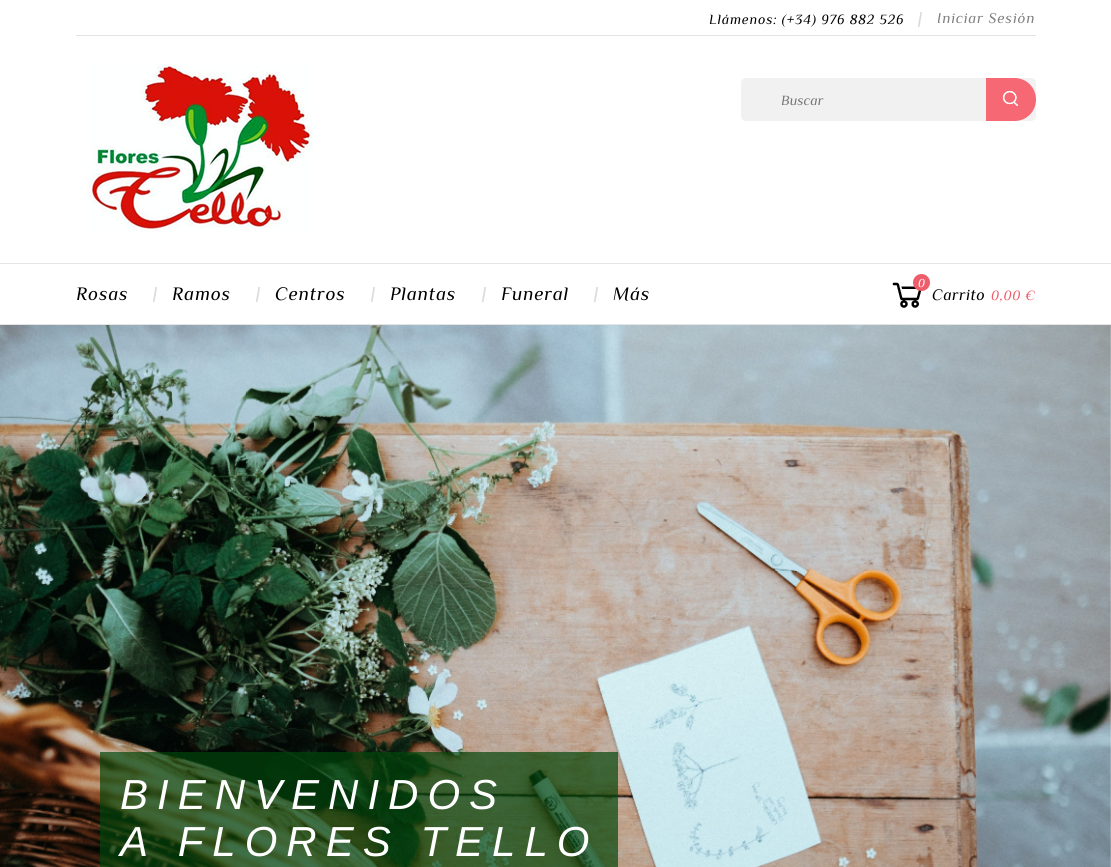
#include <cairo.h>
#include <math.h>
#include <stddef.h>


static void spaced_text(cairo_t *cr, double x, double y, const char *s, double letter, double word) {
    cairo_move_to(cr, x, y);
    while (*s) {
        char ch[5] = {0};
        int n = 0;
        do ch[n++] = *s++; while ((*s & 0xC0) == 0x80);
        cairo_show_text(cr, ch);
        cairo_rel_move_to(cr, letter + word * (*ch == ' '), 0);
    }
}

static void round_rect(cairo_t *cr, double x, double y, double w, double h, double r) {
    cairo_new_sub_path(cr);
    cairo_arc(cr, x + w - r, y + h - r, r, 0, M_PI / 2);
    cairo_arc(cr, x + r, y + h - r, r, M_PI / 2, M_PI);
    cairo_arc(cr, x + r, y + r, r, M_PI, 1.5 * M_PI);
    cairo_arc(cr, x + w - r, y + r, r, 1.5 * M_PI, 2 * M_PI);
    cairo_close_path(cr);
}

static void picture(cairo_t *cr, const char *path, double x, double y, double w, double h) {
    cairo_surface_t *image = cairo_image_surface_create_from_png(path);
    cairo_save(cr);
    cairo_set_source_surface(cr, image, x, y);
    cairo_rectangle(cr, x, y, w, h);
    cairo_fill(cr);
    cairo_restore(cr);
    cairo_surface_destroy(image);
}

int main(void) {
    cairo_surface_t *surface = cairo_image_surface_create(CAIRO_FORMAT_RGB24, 1111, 867);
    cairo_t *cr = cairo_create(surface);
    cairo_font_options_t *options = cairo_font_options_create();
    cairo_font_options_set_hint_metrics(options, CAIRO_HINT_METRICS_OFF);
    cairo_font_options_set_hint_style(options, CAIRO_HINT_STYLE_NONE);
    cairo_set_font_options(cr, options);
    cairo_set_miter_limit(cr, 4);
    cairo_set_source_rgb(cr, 1, 1, 1);
    cairo_paint(cr);
    cairo_set_source_rgb(cr, 0.894, 0.894, 0.894);
    cairo_rectangle(cr, 76, 35, 960, 1);
    cairo_fill(cr);
    picture(cr, "img1.png", 917, 12, 5, 15);
    cairo_select_font_face(cr, "Philosopher", CAIRO_FONT_SLANT_ITALIC, CAIRO_FONT_WEIGHT_NORMAL);
    cairo_set_font_size(cr, 14);
    cairo_set_source_rgb(cr, 0, 0, 0);
    spaced_text(cr, 709, 24, "Llámenos: (+34) 976 882 526", 0.8, 0);
    cairo_set_font_size(cr, 15);
    cairo_set_source_rgb(cr, 0.502, 0.502, 0.502);
    spaced_text(cr, 937, 23, "Iniciar Sesión", 0.8, 0);
    cairo_set_source_rgb(cr, 0.894, 0.894, 0.894);
    cairo_rectangle(cr, 0, 263, 1111, 1);
    cairo_fill(cr);
    cairo_rectangle(cr, 0, 324, 1111, 1);
    cairo_fill(cr);
    cairo_set_font_size(cr, 19);
    cairo_set_source_rgb(cr, 0, 0, 0);
    spaced_text(cr, 76, 300, "Rosas", 0.8, 0);
    picture(cr, "img1.png", 152, 287, 5, 15);
    spaced_text(cr, 172, 300, "Ramos", 0.8, 0);
    picture(cr, "img1.png", 255, 287, 5, 15);
    spaced_text(cr, 275, 300, "Centros", 0.8, 0);
    picture(cr, "img1.png", 370, 287, 5, 15);
    spaced_text(cr, 390, 300, "Plantas", 0.8, 0);
    picture(cr, "img1.png", 481, 287, 5, 15);
    spaced_text(cr, 501, 300, "Funeral", 0.8, 0);
    picture(cr, "img1.png", 593, 287, 5, 15);
    spaced_text(cr, 613, 300, "Más", 0.8, 0);
    picture(cr, "img2.png", 87, 64, 226, 168);
    cairo_set_source_rgb(cr, 0.945, 0.945, 0.945);
    round_rect(cr, 741, 78, 295, 43, 5);
    cairo_fill(cr);
    cairo_set_font_size(cr, 14);
    cairo_set_source_rgb(cr, 0.459, 0.459, 0.459);
    cairo_move_to(cr, 781, 105);
    cairo_show_text(cr, "Buscar");
    cairo_set_source_rgb(cr, 0.965, 0.408, 0.459);
    cairo_new_path(cr);
    cairo_move_to(cr, 986, 78);
    cairo_line_to(cr, 1014.5, 78);
    cairo_curve_to(cr, 1026.5, 78, 1036, 87.5, 1036, 99.5);
    cairo_curve_to(cr, 1036, 111.5, 1026.5, 121, 1014.5, 121);
    cairo_line_to(cr, 986, 121);
    cairo_close_path(cr);
    cairo_fill(cr);
    picture(cr, "img3.png", 1003, 91, 15, 15);
    picture(cr, "img4.png", 892, 282, 30, 26);
    cairo_set_source_rgb(cr, 0.929, 0.365, 0.416);
    cairo_arc(cr, 921.5, 282.5, 8.5, 0, 2 * M_PI);
    cairo_fill(cr);
    cairo_set_font_size(cr, 12);
    cairo_set_source_rgb(cr, 1, 1, 1);
    spaced_text(cr, 918, 287, "0", 0.8, 0);
    cairo_set_font_size(cr, 16);
    cairo_set_source_rgb(cr, 0, 0, 0);
    spaced_text(cr, 932, 300, "Carrito", 0.5, 0);
    cairo_set_font_size(cr, 14);
    cairo_set_source_rgb(cr, 0.929, 0.365, 0.416);
    spaced_text(cr, 991, 300, "0,00 €", 0.5, 0);
    picture(cr, "img5.png", 0, 325, 1111, 542);
    cairo_set_source_rgba(cr, 0.008, 0.275, 0.043, 0.69);
    cairo_rectangle(cr, 100, 752, 518, 115);
    cairo_fill(cr);
    cairo_select_font_face(cr, "Liberation Sans", CAIRO_FONT_SLANT_ITALIC, CAIRO_FONT_WEIGHT_NORMAL);
    cairo_set_font_size(cr, 42);
    cairo_set_source_rgb(cr, 1, 1, 1);
    spaced_text(cr, 120, 809, "BIENVENIDOS", 9, 0);
    spaced_text(cr, 120, 856, "A FLORES TELLO", 9, 0);
    cairo_surface_write_to_png(surface, "page.png");
    cairo_font_options_destroy(options);
    cairo_destroy(cr);
    cairo_surface_destroy(surface);
    return 0;
}
